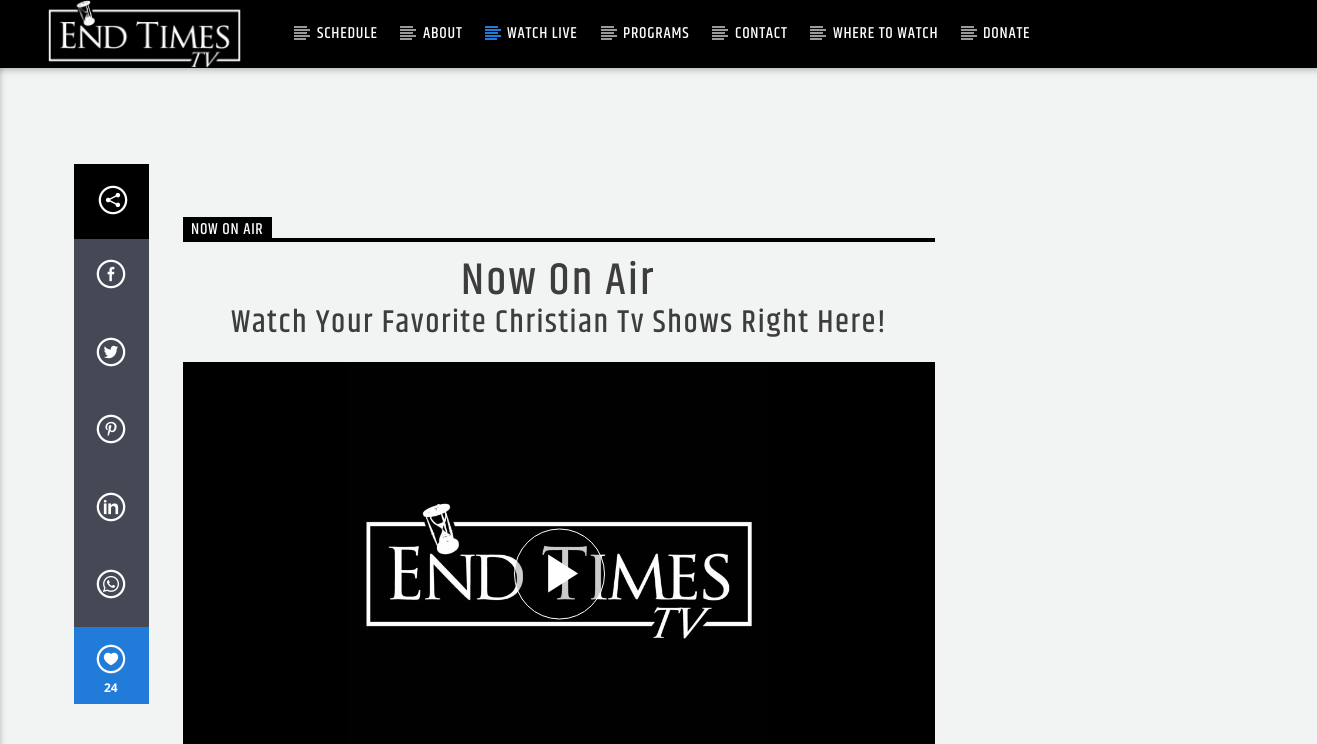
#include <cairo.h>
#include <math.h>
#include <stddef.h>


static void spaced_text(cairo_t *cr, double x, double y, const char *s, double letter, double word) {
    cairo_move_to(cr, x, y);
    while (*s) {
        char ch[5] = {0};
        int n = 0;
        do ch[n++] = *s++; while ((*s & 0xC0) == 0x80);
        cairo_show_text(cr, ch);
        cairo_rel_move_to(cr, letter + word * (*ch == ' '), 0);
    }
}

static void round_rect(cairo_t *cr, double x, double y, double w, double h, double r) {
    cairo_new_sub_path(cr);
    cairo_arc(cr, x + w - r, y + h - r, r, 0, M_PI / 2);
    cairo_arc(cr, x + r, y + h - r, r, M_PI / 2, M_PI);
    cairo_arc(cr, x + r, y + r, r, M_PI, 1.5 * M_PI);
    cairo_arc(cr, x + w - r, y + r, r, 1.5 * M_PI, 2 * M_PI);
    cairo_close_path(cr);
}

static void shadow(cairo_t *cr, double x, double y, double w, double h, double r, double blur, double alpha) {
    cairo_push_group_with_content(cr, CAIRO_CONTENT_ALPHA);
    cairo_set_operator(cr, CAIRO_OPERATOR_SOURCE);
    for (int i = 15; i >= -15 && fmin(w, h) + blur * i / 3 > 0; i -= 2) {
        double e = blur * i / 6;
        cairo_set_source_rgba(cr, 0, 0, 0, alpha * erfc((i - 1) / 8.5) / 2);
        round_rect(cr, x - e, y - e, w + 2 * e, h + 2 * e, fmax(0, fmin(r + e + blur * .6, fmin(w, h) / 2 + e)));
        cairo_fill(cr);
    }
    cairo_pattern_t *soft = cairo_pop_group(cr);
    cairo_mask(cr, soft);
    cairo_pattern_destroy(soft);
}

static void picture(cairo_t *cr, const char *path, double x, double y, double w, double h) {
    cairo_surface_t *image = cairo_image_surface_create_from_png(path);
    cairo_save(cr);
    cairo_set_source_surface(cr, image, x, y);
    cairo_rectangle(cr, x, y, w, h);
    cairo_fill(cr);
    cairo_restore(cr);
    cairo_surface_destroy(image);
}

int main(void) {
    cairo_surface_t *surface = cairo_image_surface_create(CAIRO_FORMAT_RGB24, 1317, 744);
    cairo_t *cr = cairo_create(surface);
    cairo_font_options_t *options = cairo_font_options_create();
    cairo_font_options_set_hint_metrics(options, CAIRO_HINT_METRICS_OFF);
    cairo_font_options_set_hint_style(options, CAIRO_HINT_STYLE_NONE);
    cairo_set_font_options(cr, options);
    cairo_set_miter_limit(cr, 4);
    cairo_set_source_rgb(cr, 0.949, 0.953, 0.953);
    cairo_paint(cr);
    cairo_set_source_rgb(cr, 0, 0, 0);
    shadow(cr, 0, 2, 1317, 68, 0, 5, 0.12);
    shadow(cr, 0, 2, 1317, 68, 0, 2.5, 0.16);
    cairo_set_source_rgb(cr, 0, 0, 0);
    cairo_rectangle(cr, 0, 0, 1317, 68);
    cairo_fill(cr);
    cairo_set_source_rgb(cr, 0, 0, 0);
    shadow(cr, -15, 2, 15, 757, 0, 5, 0.12);
    shadow(cr, -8, 2, 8, 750, 0, 2.5, 0.16);
    picture(cr, "img1.png", 48, 0, 193, 68);
    cairo_set_source_rgb(cr, 0.6, 0.6, 0.6);
    cairo_rectangle(cr, 294, 38, 12, 2);
    cairo_fill(cr);
    cairo_rectangle(cr, 294, 26, 13, 2);
    cairo_fill(cr);
    cairo_rectangle(cr, 294, 32, 13, 2);
    cairo_fill(cr);
    cairo_select_font_face(cr, "Khand Medium", CAIRO_FONT_SLANT_NORMAL, CAIRO_FONT_WEIGHT_NORMAL);
    cairo_set_font_size(cr, 16);
    cairo_set_source_rgb(cr, 1, 1, 1);
    spaced_text(cr, 317, 38, "SCHEDULE", 0.75, 0);
    cairo_set_source_rgb(cr, 0.6, 0.6, 0.6);
    cairo_rectangle(cr, 294, 29, 16, 2);
    cairo_fill(cr);
    cairo_rectangle(cr, 294, 35, 16, 2);
    cairo_fill(cr);
    cairo_rectangle(cr, 400, 38, 12, 2);
    cairo_fill(cr);
    cairo_rectangle(cr, 400, 26, 13, 2);
    cairo_fill(cr);
    cairo_rectangle(cr, 400, 32, 13, 2);
    cairo_fill(cr);
    cairo_set_source_rgb(cr, 1, 1, 1);
    spaced_text(cr, 423, 38, "ABOUT", 0.75, 0);
    cairo_set_source_rgb(cr, 0.6, 0.6, 0.6);
    cairo_rectangle(cr, 400, 29, 16, 2);
    cairo_fill(cr);
    cairo_rectangle(cr, 400, 35, 16, 2);
    cairo_fill(cr);
    cairo_set_source_rgb(cr, 0.129, 0.486, 0.851);
    cairo_rectangle(cr, 485, 38, 12, 2);
    cairo_fill(cr);
    cairo_rectangle(cr, 485, 26, 13, 2);
    cairo_fill(cr);
    cairo_rectangle(cr, 485, 32, 13, 2);
    cairo_fill(cr);
    cairo_set_source_rgb(cr, 1, 1, 1);
    spaced_text(cr, 507, 38, "WATCH LIVE", 0.75, 0);
    cairo_set_source_rgb(cr, 0.129, 0.486, 0.851);
    cairo_rectangle(cr, 485, 29, 16, 2);
    cairo_fill(cr);
    cairo_rectangle(cr, 485, 35, 16, 2);
    cairo_fill(cr);
    cairo_set_source_rgb(cr, 0.6, 0.6, 0.6);
    cairo_rectangle(cr, 601, 38, 11, 2);
    cairo_fill(cr);
    cairo_rectangle(cr, 601, 26, 13, 2);
    cairo_fill(cr);
    cairo_rectangle(cr, 601, 32, 13, 2);
    cairo_fill(cr);
    cairo_set_source_rgb(cr, 1, 1, 1);
    spaced_text(cr, 623, 38, "PROGRAMS", 0.75, 0);
    cairo_set_source_rgb(cr, 0.6, 0.6, 0.6);
    cairo_rectangle(cr, 601, 29, 16, 2);
    cairo_fill(cr);
    cairo_rectangle(cr, 601, 35, 16, 2);
    cairo_fill(cr);
    cairo_rectangle(cr, 712, 38, 12, 2);
    cairo_fill(cr);
    cairo_rectangle(cr, 712, 26, 13, 2);
    cairo_fill(cr);
    cairo_rectangle(cr, 712, 32, 13, 2);
    cairo_fill(cr);
    cairo_set_source_rgb(cr, 1, 1, 1);
    spaced_text(cr, 735, 38, "CONTACT", 0.75, 0);
    cairo_set_source_rgb(cr, 0.6, 0.6, 0.6);
    cairo_rectangle(cr, 712, 29, 16, 2);
    cairo_fill(cr);
    cairo_rectangle(cr, 712, 35, 16, 2);
    cairo_fill(cr);
    cairo_rectangle(cr, 810, 38, 12, 2);
    cairo_fill(cr);
    cairo_rectangle(cr, 810, 26, 13, 2);
    cairo_fill(cr);
    cairo_rectangle(cr, 810, 32, 13, 2);
    cairo_fill(cr);
    cairo_set_source_rgb(cr, 1, 1, 1);
    spaced_text(cr, 833, 38, "WHERE TO WATCH", 0.75, 0);
    cairo_set_source_rgb(cr, 0.6, 0.6, 0.6);
    cairo_rectangle(cr, 810, 29, 16, 2);
    cairo_fill(cr);
    cairo_rectangle(cr, 810, 35, 16, 2);
    cairo_fill(cr);
    cairo_rectangle(cr, 961, 38, 12, 2);
    cairo_fill(cr);
    cairo_rectangle(cr, 961, 26, 13, 2);
    cairo_fill(cr);
    cairo_rectangle(cr, 961, 32, 13, 2);
    cairo_fill(cr);
    cairo_set_source_rgb(cr, 1, 1, 1);
    spaced_text(cr, 983, 38, "DONATE", 0.75, 0);
    cairo_set_source_rgb(cr, 0.6, 0.6, 0.6);
    cairo_rectangle(cr, 961, 29, 16, 2);
    cairo_fill(cr);
    cairo_rectangle(cr, 961, 35, 16, 2);
    cairo_fill(cr);
    cairo_set_source_rgb(cr, 0, 0, 0);
    cairo_rectangle(cr, 272, 238, 663, 4);
    cairo_fill(cr);
    cairo_rectangle(cr, 183, 217, 89, 25);
    cairo_fill(cr);
    cairo_set_source_rgb(cr, 1, 1, 1);
    spaced_text(cr, 191, 234, "NOW ON AIR", 0.75, 0);
    cairo_set_font_size(cr, 45);
    cairo_set_source_rgb(cr, 0.239, 0.239, 0.239);
    spaced_text(cr, 461, 294, "Now On Air", 2.25, 0);
    cairo_set_font_size(cr, 32);
    spaced_text(cr, 231, 332, "Watch Your Favorite Christian Tv Shows Right Here!", 1.6, 0);
    picture(cr, "img2.png", 183, 362, 752, 382);
    cairo_set_source_rgb(cr, 0.271, 0.286, 0.333);
    cairo_rectangle(cr, 74, 239, 75, 388);
    cairo_fill(cr);
    cairo_set_source_rgb(cr, 0, 0, 0);
    cairo_rectangle(cr, 74, 164, 75, 75);
    cairo_fill(cr);
    picture(cr, "img3.png", 98, 185, 30, 30);
    picture(cr, "img4.png", 96, 259, 30, 30);
    picture(cr, "img5.png", 96, 337, 30, 30);
    picture(cr, "img6.png", 96, 414, 30, 30);
    picture(cr, "img7.png", 96, 492, 30, 30);
    picture(cr, "img8.png", 96, 569, 30, 30);
    cairo_set_source_rgb(cr, 0.129, 0.486, 0.851);
    cairo_rectangle(cr, 74, 627, 75, 77);
    cairo_fill(cr);
    picture(cr, "img9.png", 96, 644, 30, 30);
    cairo_select_font_face(cr, "Open Sans", CAIRO_FONT_SLANT_NORMAL, CAIRO_FONT_WEIGHT_BOLD);
    cairo_set_font_size(cr, 12);
    cairo_set_source_rgb(cr, 1, 1, 1);
    cairo_move_to(cr, 104, 692);
    cairo_show_text(cr, "24");
    cairo_surface_write_to_png(surface, "page.png");
    cairo_font_options_destroy(options);
    cairo_destroy(cr);
    cairo_surface_destroy(surface);
    return 0;
}
